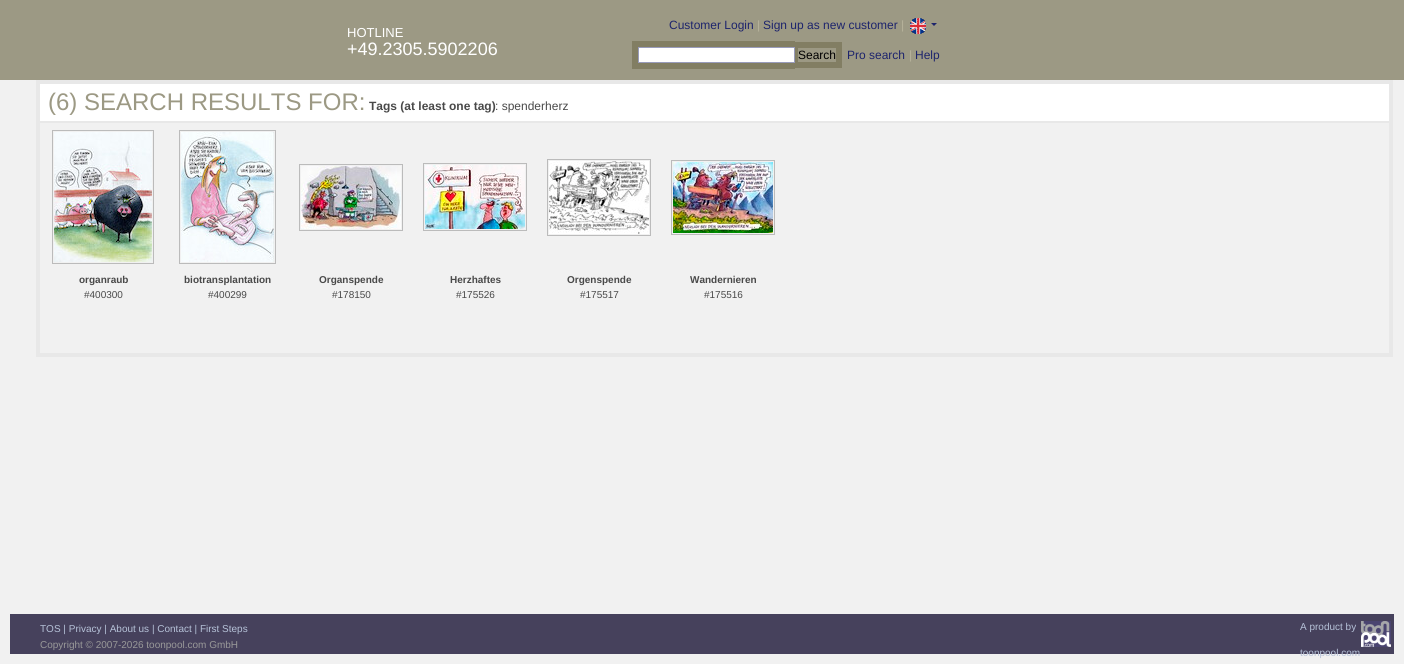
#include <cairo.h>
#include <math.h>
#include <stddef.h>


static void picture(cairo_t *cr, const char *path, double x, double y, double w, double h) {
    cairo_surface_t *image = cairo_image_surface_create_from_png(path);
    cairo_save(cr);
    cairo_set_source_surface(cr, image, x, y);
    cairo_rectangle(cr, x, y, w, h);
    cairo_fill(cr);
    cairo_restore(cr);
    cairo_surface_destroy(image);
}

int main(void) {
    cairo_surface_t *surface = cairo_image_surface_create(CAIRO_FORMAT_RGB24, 1404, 664);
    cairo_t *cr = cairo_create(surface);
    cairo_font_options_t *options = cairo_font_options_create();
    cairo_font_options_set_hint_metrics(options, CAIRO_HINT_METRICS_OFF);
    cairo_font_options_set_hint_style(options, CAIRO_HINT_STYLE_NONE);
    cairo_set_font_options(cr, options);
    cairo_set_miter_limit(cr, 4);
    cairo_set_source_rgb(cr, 0.945, 0.945, 0.945);
    cairo_paint(cr);
    cairo_set_source_rgb(cr, 0.612, 0.6, 0.518);
    cairo_rectangle(cr, 0, 0, 1404, 80);
    cairo_fill(cr);
    cairo_select_font_face(cr, "Liberation Sans", CAIRO_FONT_SLANT_NORMAL, CAIRO_FONT_WEIGHT_NORMAL);
    cairo_set_font_size(cr, 13);
    cairo_set_source_rgb(cr, 1, 1, 1);
    cairo_move_to(cr, 347, 37);
    cairo_show_text(cr, "HOTLINE");
    cairo_set_font_size(cr, 18);
    cairo_move_to(cr, 347, 55);
    cairo_show_text(cr, "+49.2305.5902206");
    cairo_set_font_size(cr, 12);
    cairo_set_source_rgb(cr, 0.114, 0.141, 0.424);
    cairo_move_to(cr, 669, 29);
    cairo_show_text(cr, "Customer Login");
    cairo_set_source_rgb(cr, 0.71, 0.698, 0.608);
    cairo_move_to(cr, 757, 29);
    cairo_show_text(cr, "|");
    cairo_set_source_rgb(cr, 0.114, 0.141, 0.424);
    cairo_move_to(cr, 763, 29);
    cairo_show_text(cr, "Sign up as new customer");
    cairo_set_source_rgb(cr, 0.71, 0.698, 0.608);
    cairo_move_to(cr, 901, 29);
    cairo_show_text(cr, "|");
    picture(cr, "img1.png", 910, 18, 16, 16);
    cairo_set_source_rgb(cr, 0.114, 0.141, 0.424);
    cairo_new_path(cr);
    cairo_move_to(cr, 931, 23);
    cairo_line_to(cr, 937, 23);
    cairo_line_to(cr, 934, 26);
    cairo_close_path(cr);
    cairo_fill(cr);
    cairo_set_source_rgb(cr, 0.51, 0.494, 0.388);
    cairo_rectangle(cr, 632, 41, 163, 28);
    cairo_fill(cr);
    cairo_rectangle(cr, 795, 42, 47, 26);
    cairo_fill(cr);
    cairo_set_source_rgb(cr, 1, 1, 1);
    cairo_rectangle(cr, 638.5, 47.5, 156, 15);
    cairo_fill_preserve(cr);
    cairo_set_source_rgb(cr, 0.6, 0.612, 0.733);
    cairo_set_line_width(cr, 1);
    cairo_stroke(cr);
    cairo_set_source_rgb(cr, 0.612, 0.6, 0.518);
    cairo_rectangle(cr, 798, 48, 38, 14);
    cairo_fill(cr);
    cairo_set_source_rgb(cr, 0, 0, 0);
    cairo_move_to(cr, 798, 59);
    cairo_show_text(cr, "Search");
    cairo_set_source_rgb(cr, 0.114, 0.141, 0.424);
    cairo_move_to(cr, 847, 59);
    cairo_show_text(cr, "Pro search");
    cairo_set_source_rgb(cr, 0.71, 0.698, 0.608);
    cairo_move_to(cr, 909, 59);
    cairo_show_text(cr, "|");
    cairo_set_source_rgb(cr, 0.114, 0.141, 0.424);
    cairo_move_to(cr, 915, 59);
    cairo_show_text(cr, "Help");
    cairo_rectangle(cr, 38, 82, 1353, 273);
    cairo_set_source_rgb(cr, 0.91, 0.91, 0.91);
    cairo_set_line_width(cr, 4);
    cairo_stroke(cr);
    cairo_set_source_rgb(cr, 1, 1, 1);
    cairo_rectangle(cr, 40, 84, 1349, 37);
    cairo_fill(cr);
    cairo_set_font_size(cr, 24);
    cairo_set_source_rgb(cr, 0.612, 0.6, 0.518);
    cairo_move_to(cr, 48, 110);
    cairo_show_text(cr, "(6) SEARCH RESULTS FOR:");
    cairo_select_font_face(cr, "Liberation Sans", CAIRO_FONT_SLANT_NORMAL, CAIRO_FONT_WEIGHT_BOLD);
    cairo_set_font_size(cr, 12);
    cairo_set_source_rgb(cr, 0.286, 0.286, 0.286);
    cairo_move_to(cr, 369, 110);
    cairo_show_text(cr, "Tags (at least one tag)");
    cairo_select_font_face(cr, "Liberation Sans", CAIRO_FONT_SLANT_NORMAL, CAIRO_FONT_WEIGHT_NORMAL);
    cairo_move_to(cr, 495, 110);
    cairo_show_text(cr, ": spenderherz");
    cairo_set_source_rgb(cr, 0.91, 0.91, 0.91);
    cairo_rectangle(cr, 40, 121, 1349, 2);
    cairo_fill(cr);
    cairo_rectangle(cr, 52.5, 130.5, 101, 133);
    cairo_set_source_rgb(cr, 0.733, 0.733, 0.733);
    cairo_set_line_width(cr, 1);
    cairo_stroke(cr);
    picture(cr, "img2.png", 54, 132, 98, 130);
    cairo_select_font_face(cr, "Liberation Sans", CAIRO_FONT_SLANT_NORMAL, CAIRO_FONT_WEIGHT_BOLD);
    cairo_set_font_size(cr, 10);
    cairo_set_source_rgb(cr, 0.286, 0.286, 0.286);
    cairo_move_to(cr, 79, 283);
    cairo_show_text(cr, "organraub");
    cairo_select_font_face(cr, "Liberation Sans", CAIRO_FONT_SLANT_NORMAL, CAIRO_FONT_WEIGHT_NORMAL);
    cairo_move_to(cr, 84, 298);
    cairo_show_text(cr, "#400300");
    cairo_rectangle(cr, 179.5, 130.5, 96, 133);
    cairo_set_source_rgb(cr, 0.733, 0.733, 0.733);
    cairo_stroke(cr);
    picture(cr, "img3.png", 181, 132, 93, 130);
    cairo_select_font_face(cr, "Liberation Sans", CAIRO_FONT_SLANT_NORMAL, CAIRO_FONT_WEIGHT_BOLD);
    cairo_set_source_rgb(cr, 0.286, 0.286, 0.286);
    cairo_move_to(cr, 184, 283);
    cairo_show_text(cr, "biotransplantation");
    cairo_select_font_face(cr, "Liberation Sans", CAIRO_FONT_SLANT_NORMAL, CAIRO_FONT_WEIGHT_NORMAL);
    cairo_move_to(cr, 208, 298);
    cairo_show_text(cr, "#400299");
    cairo_rectangle(cr, 299.5, 164.5, 103, 66);
    cairo_set_source_rgb(cr, 0.733, 0.733, 0.733);
    cairo_stroke(cr);
    picture(cr, "img4.png", 301, 166, 100, 63);
    cairo_select_font_face(cr, "Liberation Sans", CAIRO_FONT_SLANT_NORMAL, CAIRO_FONT_WEIGHT_BOLD);
    cairo_set_source_rgb(cr, 0.286, 0.286, 0.286);
    cairo_move_to(cr, 319, 283);
    cairo_show_text(cr, "Organspende");
    cairo_select_font_face(cr, "Liberation Sans", CAIRO_FONT_SLANT_NORMAL, CAIRO_FONT_WEIGHT_NORMAL);
    cairo_move_to(cr, 332, 298);
    cairo_show_text(cr, "#178150");
    cairo_rectangle(cr, 423.5, 163.5, 103, 67);
    cairo_set_source_rgb(cr, 0.733, 0.733, 0.733);
    cairo_stroke(cr);
    picture(cr, "img5.png", 425, 165, 100, 64);
    cairo_select_font_face(cr, "Liberation Sans", CAIRO_FONT_SLANT_NORMAL, CAIRO_FONT_WEIGHT_BOLD);
    cairo_set_source_rgb(cr, 0.286, 0.286, 0.286);
    cairo_move_to(cr, 450, 283);
    cairo_show_text(cr, "Herzhaftes");
    cairo_select_font_face(cr, "Liberation Sans", CAIRO_FONT_SLANT_NORMAL, CAIRO_FONT_WEIGHT_NORMAL);
    cairo_move_to(cr, 456, 298);
    cairo_show_text(cr, "#175526");
    cairo_rectangle(cr, 547.5, 159.5, 103, 76);
    cairo_set_source_rgb(cr, 0.733, 0.733, 0.733);
    cairo_stroke(cr);
    picture(cr, "img6.png", 549, 161, 100, 73);
    cairo_select_font_face(cr, "Liberation Sans", CAIRO_FONT_SLANT_NORMAL, CAIRO_FONT_WEIGHT_BOLD);
    cairo_set_source_rgb(cr, 0.286, 0.286, 0.286);
    cairo_move_to(cr, 567, 283);
    cairo_show_text(cr, "Orgenspende");
    cairo_select_font_face(cr, "Liberation Sans", CAIRO_FONT_SLANT_NORMAL, CAIRO_FONT_WEIGHT_NORMAL);
    cairo_move_to(cr, 580, 298);
    cairo_show_text(cr, "#175517");
    cairo_rectangle(cr, 671.5, 160.5, 103, 74);
    cairo_set_source_rgb(cr, 0.733, 0.733, 0.733);
    cairo_stroke(cr);
    picture(cr, "img7.png", 673, 162, 100, 71);
    cairo_select_font_face(cr, "Liberation Sans", CAIRO_FONT_SLANT_NORMAL, CAIRO_FONT_WEIGHT_BOLD);
    cairo_set_source_rgb(cr, 0.286, 0.286, 0.286);
    cairo_move_to(cr, 690, 283);
    cairo_show_text(cr, "Wandernieren");
    cairo_select_font_face(cr, "Liberation Sans", CAIRO_FONT_SLANT_NORMAL, CAIRO_FONT_WEIGHT_NORMAL);
    cairo_move_to(cr, 704, 298);
    cairo_show_text(cr, "#175516");
    cairo_set_source_rgb(cr, 0.275, 0.255, 0.361);
    cairo_rectangle(cr, 10, 614, 1384, 40);
    cairo_fill(cr);
    cairo_set_source_rgb(cr, 0.714, 0.761, 0.847);
    cairo_move_to(cr, 40, 632);
    cairo_show_text(cr, "TOS | Privacy | About us | Contact | First Steps");
    cairo_set_source_rgb(cr, 0.6, 0.6, 0.6);
    cairo_move_to(cr, 40, 648);
    cairo_show_text(cr, "Copyright © 2007-2026 toonpool.com GmbH");
    cairo_set_source_rgb(cr, 0.714, 0.761, 0.847);
    cairo_move_to(cr, 1300, 630);
    cairo_show_text(cr, "A product by");
    picture(cr, "img8.png", 1361, 621, 30, 26);
    cairo_move_to(cr, 1300, 656);
    cairo_show_text(cr, "toonpool.com");
    cairo_surface_write_to_png(surface, "page.png");
    cairo_font_options_destroy(options);
    cairo_destroy(cr);
    cairo_surface_destroy(surface);
    return 0;
}
